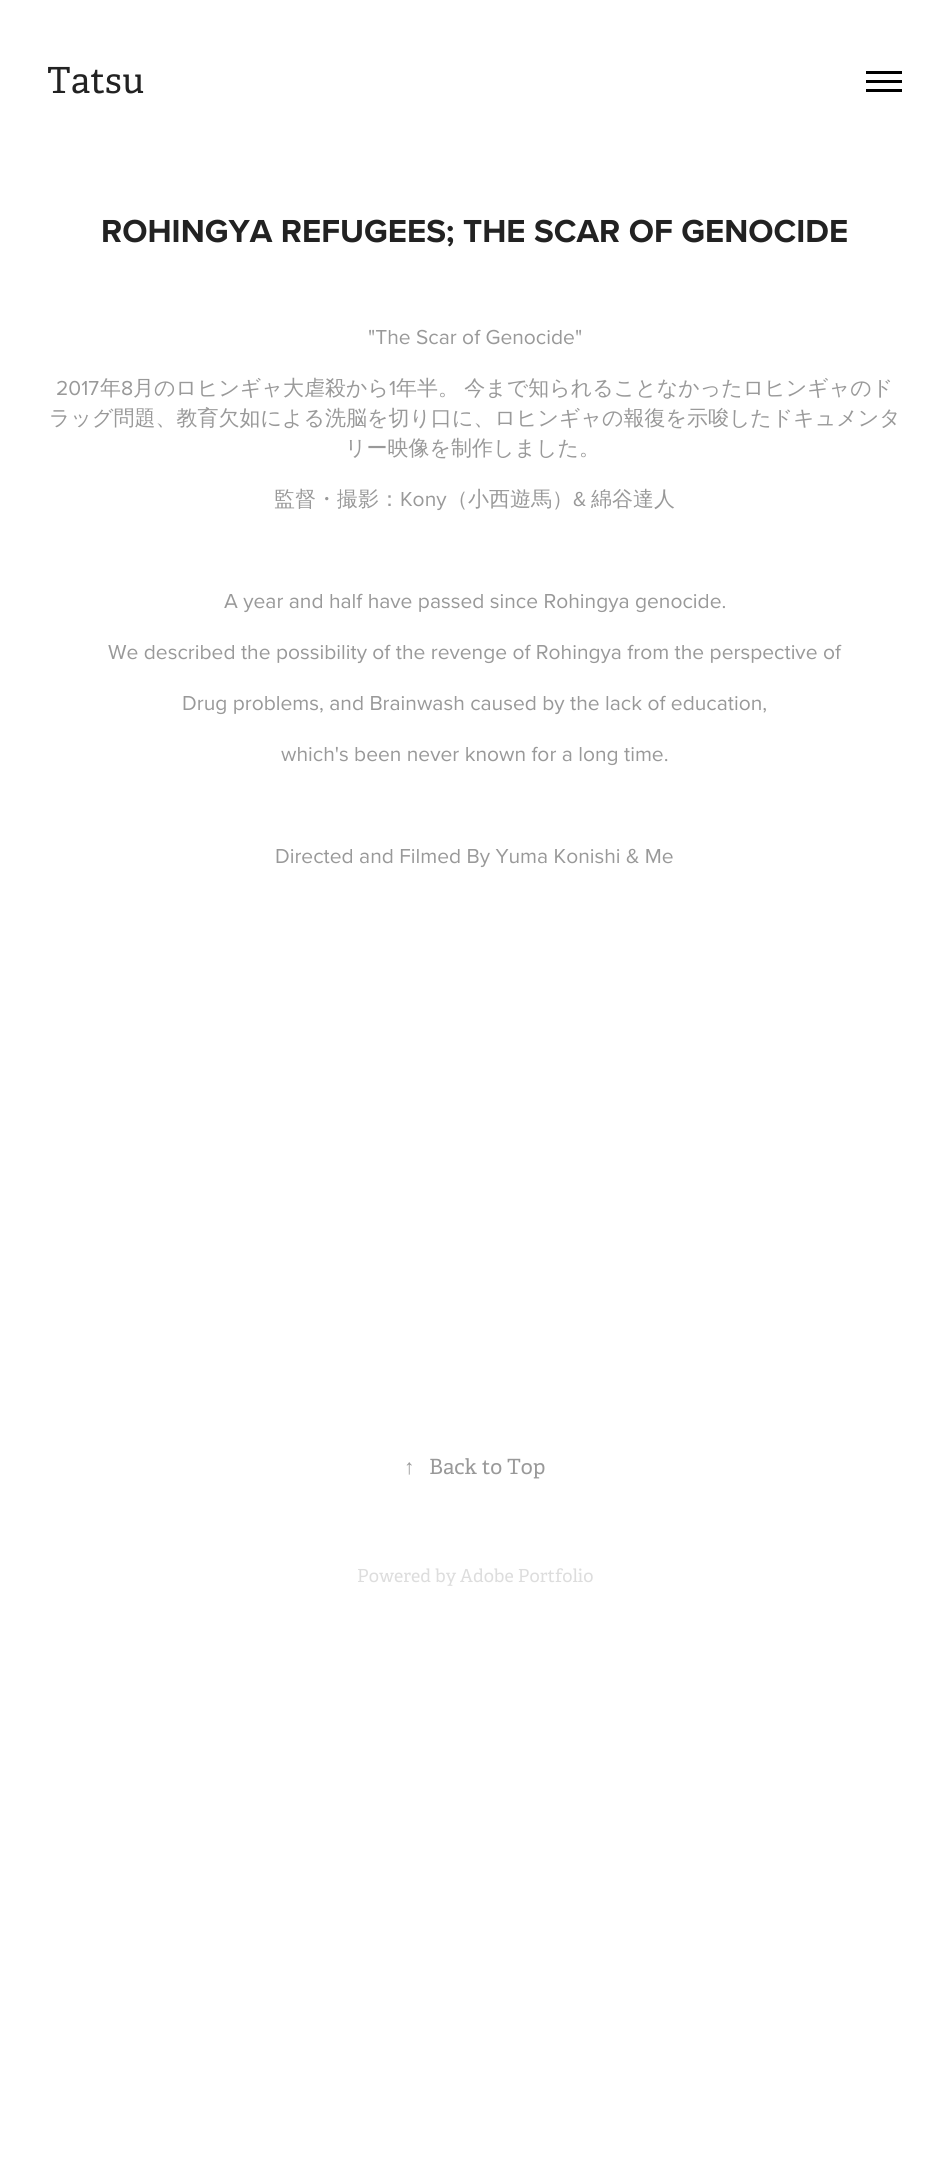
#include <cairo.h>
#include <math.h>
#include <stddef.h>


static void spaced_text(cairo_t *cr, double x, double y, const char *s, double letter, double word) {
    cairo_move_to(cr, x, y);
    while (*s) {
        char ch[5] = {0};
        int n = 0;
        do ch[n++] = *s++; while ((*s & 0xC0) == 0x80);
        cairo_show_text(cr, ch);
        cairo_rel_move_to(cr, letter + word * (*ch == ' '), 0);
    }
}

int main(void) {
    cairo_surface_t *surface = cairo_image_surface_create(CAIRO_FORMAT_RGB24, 949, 2182);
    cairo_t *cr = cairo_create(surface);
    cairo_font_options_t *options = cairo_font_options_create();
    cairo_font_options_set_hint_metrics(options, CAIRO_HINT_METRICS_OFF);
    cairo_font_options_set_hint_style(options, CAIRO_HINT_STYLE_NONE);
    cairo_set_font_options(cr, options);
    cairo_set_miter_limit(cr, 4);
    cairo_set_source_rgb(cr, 1, 1, 1);
    cairo_paint(cr);
    cairo_select_font_face(cr, "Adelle", CAIRO_FONT_SLANT_NORMAL, CAIRO_FONT_WEIGHT_NORMAL);
    cairo_set_font_size(cr, 36);
    cairo_set_source_rgb(cr, 0.133, 0.133, 0.133);
    cairo_move_to(cr, 47, 93);
    cairo_show_text(cr, "Tatsu");
    cairo_set_source_rgb(cr, 0, 0, 0);
    cairo_rectangle(cr, 866, 71, 36, 3);
    cairo_fill(cr);
    cairo_rectangle(cr, 866, 80, 36, 3);
    cairo_fill(cr);
    cairo_rectangle(cr, 866, 89, 36, 3);
    cairo_fill(cr);
    cairo_select_font_face(cr, "Proxima Nova", CAIRO_FONT_SLANT_NORMAL, CAIRO_FONT_WEIGHT_BOLD);
    cairo_set_font_size(cr, 33);
    cairo_set_source_rgb(cr, 0.133, 0.133, 0.133);
    cairo_move_to(cr, 101, 242);
    cairo_show_text(cr, "ROHINGYA REFUGEES; THE SCAR OF GENOCIDE");
    cairo_select_font_face(cr, "Proxima Nova", CAIRO_FONT_SLANT_NORMAL, CAIRO_FONT_WEIGHT_NORMAL);
    cairo_set_font_size(cr, 21);
    cairo_set_source_rgb(cr, 0.6, 0.6, 0.6);
    cairo_move_to(cr, 368, 344);
    cairo_show_text(cr, "\"The Scar of Genocide\"");
    cairo_move_to(cr, 56, 395);
    cairo_show_text(cr, "2017");
    cairo_select_font_face(cr, "WenQuanYi Zen Hei Medium", CAIRO_FONT_SLANT_NORMAL, CAIRO_FONT_WEIGHT_NORMAL);
    cairo_move_to(cr, 100, 395);
    cairo_show_text(cr, "年");
    cairo_select_font_face(cr, "Proxima Nova", CAIRO_FONT_SLANT_NORMAL, CAIRO_FONT_WEIGHT_NORMAL);
    cairo_move_to(cr, 121, 395);
    cairo_show_text(cr, "8");
    cairo_select_font_face(cr, "WenQuanYi Zen Hei Medium", CAIRO_FONT_SLANT_NORMAL, CAIRO_FONT_WEIGHT_NORMAL);
    cairo_move_to(cr, 133, 395);
    cairo_show_text(cr, "月のロヒンギャ大虐殺から");
    cairo_select_font_face(cr, "Proxima Nova", CAIRO_FONT_SLANT_NORMAL, CAIRO_FONT_WEIGHT_NORMAL);
    cairo_move_to(cr, 389, 395);
    cairo_show_text(cr, "1");
    cairo_select_font_face(cr, "WenQuanYi Zen Hei Medium", CAIRO_FONT_SLANT_NORMAL, CAIRO_FONT_WEIGHT_NORMAL);
    spaced_text(cr, 396, 395, "年半。 今まで知られることなかったロヒンギャのド", 0, -1);
    cairo_move_to(cr, 49, 425);
    cairo_show_text(cr, "ラッグ問題、教育欠如による洗脳を切り口に、ロヒンギャの報復を示唆したドキュメンタ");
    cairo_move_to(cr, 345, 455);
    cairo_show_text(cr, "リー映像を制作しました。");
    cairo_move_to(cr, 274, 506);
    cairo_show_text(cr, "監督・撮影：");
    cairo_select_font_face(cr, "Proxima Nova", CAIRO_FONT_SLANT_NORMAL, CAIRO_FONT_WEIGHT_NORMAL);
    cairo_move_to(cr, 400, 506);
    cairo_show_text(cr, "Kony");
    cairo_select_font_face(cr, "WenQuanYi Zen Hei Medium", CAIRO_FONT_SLANT_NORMAL, CAIRO_FONT_WEIGHT_NORMAL);
    cairo_move_to(cr, 447, 506);
    cairo_show_text(cr, "（小西遊馬）");
    cairo_select_font_face(cr, "Proxima Nova", CAIRO_FONT_SLANT_NORMAL, CAIRO_FONT_WEIGHT_NORMAL);
    cairo_move_to(cr, 573, 506);
    cairo_show_text(cr, "&");
    cairo_select_font_face(cr, "WenQuanYi Zen Hei Medium", CAIRO_FONT_SLANT_NORMAL, CAIRO_FONT_WEIGHT_NORMAL);
    cairo_move_to(cr, 591, 506);
    cairo_show_text(cr, "綿谷達人");
    cairo_select_font_face(cr, "Proxima Nova", CAIRO_FONT_SLANT_NORMAL, CAIRO_FONT_WEIGHT_NORMAL);
    cairo_move_to(cr, 224, 608);
    cairo_show_text(cr, "A year and half have passed since Rohingya genocide.");
    cairo_move_to(cr, 108, 659);
    cairo_show_text(cr, "We described the possibility of the revenge of Rohingya from the perspective of");
    cairo_move_to(cr, 182, 710);
    cairo_show_text(cr, "Drug problems, and Brainwash caused by the lack of education,");
    cairo_move_to(cr, 281, 761);
    cairo_show_text(cr, "which's been never known for a long time.");
    cairo_move_to(cr, 275, 863);
    cairo_show_text(cr, "Directed and Filmed By Yuma Konishi & Me");
    cairo_select_font_face(cr, "Liberation Serif", CAIRO_FONT_SLANT_NORMAL, CAIRO_FONT_WEIGHT_NORMAL);
    cairo_move_to(cr, 404, 1474);
    cairo_show_text(cr, "↑");
    cairo_select_font_face(cr, "Adelle", CAIRO_FONT_SLANT_NORMAL, CAIRO_FONT_WEIGHT_NORMAL);
    cairo_move_to(cr, 429, 1474);
    cairo_show_text(cr, "Back to Top");
    cairo_set_font_size(cr, 18);
    cairo_set_source_rgb(cr, 0.867, 0.867, 0.867);
    cairo_move_to(cr, 357, 1582);
    cairo_show_text(cr, "Powered by Adobe Portfolio");
    cairo_surface_write_to_png(surface, "page.png");
    cairo_font_options_destroy(options);
    cairo_destroy(cr);
    cairo_surface_destroy(surface);
    return 0;
}
